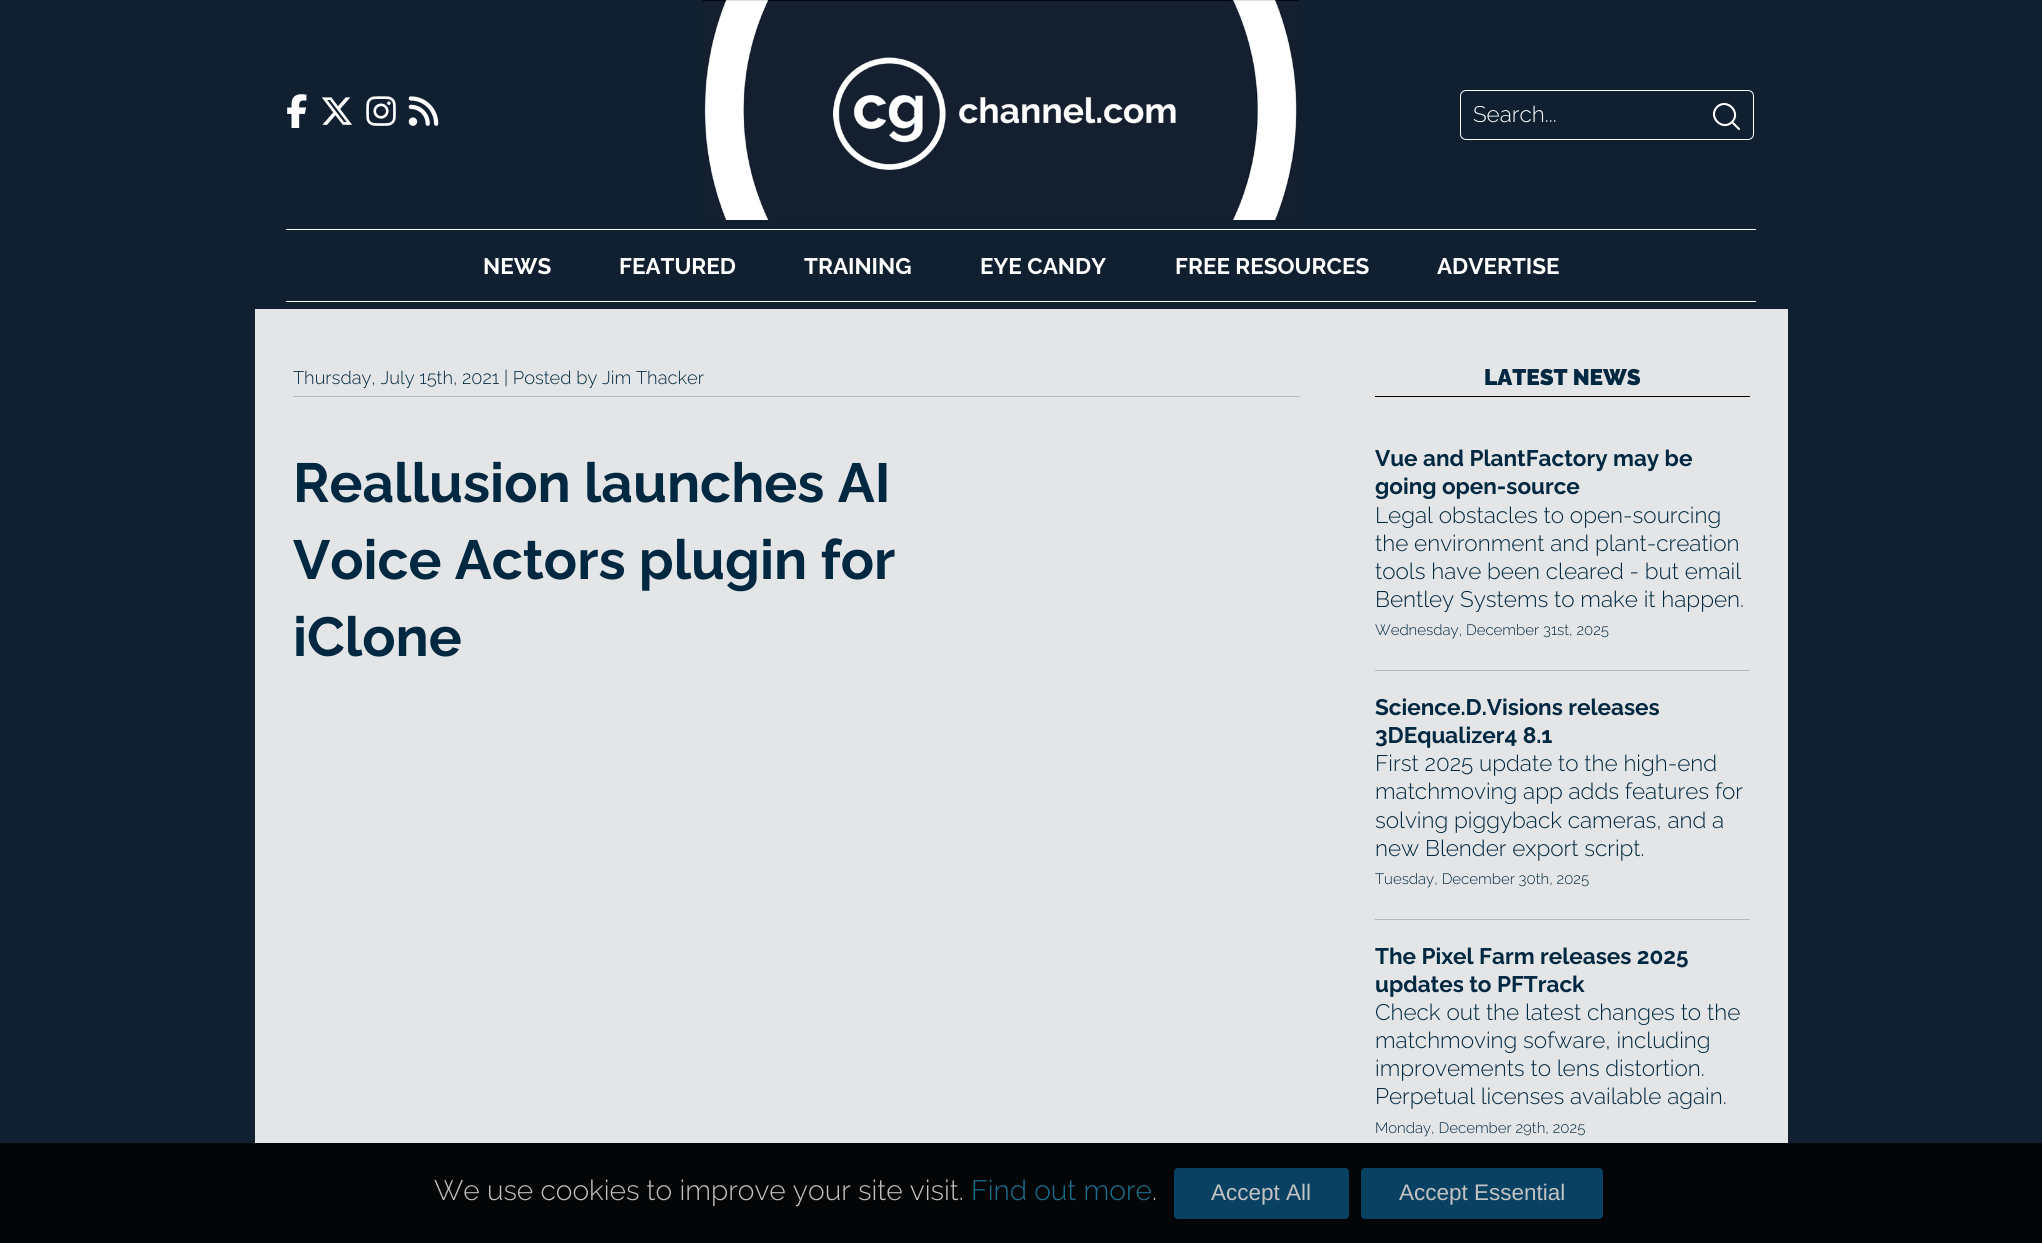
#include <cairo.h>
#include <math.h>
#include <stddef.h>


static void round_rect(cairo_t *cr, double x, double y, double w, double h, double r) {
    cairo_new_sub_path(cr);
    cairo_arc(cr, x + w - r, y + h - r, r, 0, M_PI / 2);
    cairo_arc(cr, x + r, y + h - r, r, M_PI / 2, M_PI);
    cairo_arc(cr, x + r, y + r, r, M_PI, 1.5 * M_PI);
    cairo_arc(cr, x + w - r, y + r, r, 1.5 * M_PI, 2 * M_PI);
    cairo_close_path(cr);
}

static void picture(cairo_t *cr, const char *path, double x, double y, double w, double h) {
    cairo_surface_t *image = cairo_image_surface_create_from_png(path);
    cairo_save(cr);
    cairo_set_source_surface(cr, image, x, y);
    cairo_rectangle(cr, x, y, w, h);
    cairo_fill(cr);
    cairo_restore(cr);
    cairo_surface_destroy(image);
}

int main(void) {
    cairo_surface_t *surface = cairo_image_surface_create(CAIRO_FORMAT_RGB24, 2042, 1243);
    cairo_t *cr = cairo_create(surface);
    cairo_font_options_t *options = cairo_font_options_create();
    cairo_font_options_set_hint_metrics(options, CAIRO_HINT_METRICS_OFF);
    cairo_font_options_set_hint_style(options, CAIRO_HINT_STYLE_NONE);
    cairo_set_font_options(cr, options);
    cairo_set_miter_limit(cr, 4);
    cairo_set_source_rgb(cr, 0.063, 0.125, 0.188);
    cairo_paint(cr);
    picture(cr, "img1.png", 287, 94, 20, 34);
    picture(cr, "img2.png", 321, 97, 31, 28);
    picture(cr, "img3.png", 366, 96, 30, 30);
    picture(cr, "img4.png", 408, 96, 31, 30);
    picture(cr, "img5.png", 702, 0, 597, 220);
    round_rect(cr, 1460.5, 90.5, 293, 49, 5.5);
    cairo_set_source_rgb(cr, 1, 1, 1);
    cairo_set_line_width(cr, 1);
    cairo_stroke(cr);
    cairo_select_font_face(cr, "Raleway Light", CAIRO_FONT_SLANT_NORMAL, CAIRO_FONT_WEIGHT_NORMAL);
    cairo_set_font_size(cr, 22.5);
    cairo_move_to(cr, 1473, 122);
    cairo_show_text(cr, "Search...");
    cairo_new_path(cr);
    cairo_move_to(cr, 1739, 129);
    cairo_line_to(cr, 1732, 122);
    cairo_move_to(cr, 1732, 122);
    cairo_curve_to(cr, 1741.5, 112.5, 1727, 97.5, 1717, 107);
    cairo_curve_to(cr, 1707.5, 117, 1722.5, 131.5, 1732, 122);
    cairo_close_path(cr);
    cairo_set_line_width(cr, 2.1);
    cairo_set_line_cap(cr, CAIRO_LINE_CAP_ROUND);
    cairo_set_line_join(cr, CAIRO_LINE_JOIN_ROUND);
    cairo_stroke(cr);
    cairo_rectangle(cr, 286, 229, 1470, 1);
    cairo_fill(cr);
    cairo_rectangle(cr, 286, 301, 1470, 1);
    cairo_fill(cr);
    cairo_select_font_face(cr, "Raleway", CAIRO_FONT_SLANT_NORMAL, CAIRO_FONT_WEIGHT_BOLD);
    cairo_move_to(cr, 483, 274);
    cairo_show_text(cr, "NEWS");
    cairo_move_to(cr, 619, 274);
    cairo_show_text(cr, "FEATURED");
    cairo_move_to(cr, 804, 274);
    cairo_show_text(cr, "TRAINING");
    cairo_move_to(cr, 980, 274);
    cairo_show_text(cr, "EYE CANDY");
    cairo_move_to(cr, 1175, 274);
    cairo_show_text(cr, "FREE RESOURCES");
    cairo_move_to(cr, 1437, 274);
    cairo_show_text(cr, "ADVERTISE");
    cairo_set_source_rgb(cr, 0.894, 0.898, 0.902);
    cairo_rectangle(cr, 255, 309, 1533, 834);
    cairo_fill(cr);
    cairo_set_source_rgb(cr, 0.722, 0.725, 0.729);
    cairo_rectangle(cr, 293, 396, 1007, 1);
    cairo_fill(cr);
    cairo_select_font_face(cr, "Raleway Light", CAIRO_FONT_SLANT_NORMAL, CAIRO_FONT_WEIGHT_NORMAL);
    cairo_set_font_size(cr, 18.3);
    cairo_set_source_rgb(cr, 0, 0.157, 0.255);
    cairo_move_to(cr, 293, 384);
    cairo_show_text(cr, "Thursday, July 15th, 2021 | Posted by Jim Thacker");
    cairo_select_font_face(cr, "Raleway", CAIRO_FONT_SLANT_NORMAL, CAIRO_FONT_WEIGHT_BOLD);
    cairo_set_font_size(cr, 55);
    cairo_move_to(cr, 293, 502);
    cairo_show_text(cr, "Reallusion launches AI");
    cairo_move_to(cr, 293, 579);
    cairo_show_text(cr, "Voice Actors plugin for");
    cairo_move_to(cr, 293, 656);
    cairo_show_text(cr, "iClone");
    cairo_set_source_rgb(cr, 0, 0, 0);
    cairo_rectangle(cr, 1375, 396, 375, 1);
    cairo_fill(cr);
    cairo_select_font_face(cr, "Raleway Black", CAIRO_FONT_SLANT_NORMAL, CAIRO_FONT_WEIGHT_NORMAL);
    cairo_set_font_size(cr, 22.5);
    cairo_set_source_rgb(cr, 0, 0.157, 0.255);
    cairo_move_to(cr, 1484, 385);
    cairo_show_text(cr, "LATEST NEWS");
    cairo_set_source_rgb(cr, 0.722, 0.725, 0.729);
    cairo_rectangle(cr, 1375, 670, 375, 1);
    cairo_fill(cr);
    cairo_select_font_face(cr, "Raleway", CAIRO_FONT_SLANT_NORMAL, CAIRO_FONT_WEIGHT_BOLD);
    cairo_set_source_rgb(cr, 0, 0.157, 0.255);
    cairo_move_to(cr, 1375, 466);
    cairo_show_text(cr, "Vue and PlantFactory may be");
    cairo_move_to(cr, 1375, 494);
    cairo_show_text(cr, "going open-source");
    cairo_select_font_face(cr, "Raleway Light", CAIRO_FONT_SLANT_NORMAL, CAIRO_FONT_WEIGHT_NORMAL);
    cairo_move_to(cr, 1375, 523);
    cairo_show_text(cr, "Legal obstacles to open-sourcing");
    cairo_move_to(cr, 1375, 551);
    cairo_show_text(cr, "the environment and plant-creation");
    cairo_move_to(cr, 1375, 579);
    cairo_show_text(cr, "tools have been cleared - but email");
    cairo_move_to(cr, 1375, 607);
    cairo_show_text(cr, "Bentley Systems to make it happen.");
    cairo_set_font_size(cr, 15);
    cairo_move_to(cr, 1375, 635);
    cairo_show_text(cr, "Wednesday, December 31st, 2025");
    cairo_set_source_rgb(cr, 0.722, 0.725, 0.729);
    cairo_rectangle(cr, 1375, 919, 375, 1);
    cairo_fill(cr);
    cairo_select_font_face(cr, "Raleway", CAIRO_FONT_SLANT_NORMAL, CAIRO_FONT_WEIGHT_BOLD);
    cairo_set_font_size(cr, 22.5);
    cairo_set_source_rgb(cr, 0, 0.157, 0.255);
    cairo_move_to(cr, 1375, 715);
    cairo_show_text(cr, "Science.D.Visions releases");
    cairo_move_to(cr, 1375, 743);
    cairo_show_text(cr, "3DEqualizer4 8.1");
    cairo_select_font_face(cr, "Raleway Light", CAIRO_FONT_SLANT_NORMAL, CAIRO_FONT_WEIGHT_NORMAL);
    cairo_move_to(cr, 1375, 771);
    cairo_show_text(cr, "First 2025 update to the high-end");
    cairo_move_to(cr, 1375, 799);
    cairo_show_text(cr, "matchmoving app adds features for");
    cairo_move_to(cr, 1375, 828);
    cairo_show_text(cr, "solving piggyback cameras, and a");
    cairo_move_to(cr, 1375, 856);
    cairo_show_text(cr, "new Blender export script.");
    cairo_set_font_size(cr, 15);
    cairo_move_to(cr, 1375, 884);
    cairo_show_text(cr, "Tuesday, December 30th, 2025");
    cairo_select_font_face(cr, "Raleway", CAIRO_FONT_SLANT_NORMAL, CAIRO_FONT_WEIGHT_BOLD);
    cairo_set_font_size(cr, 22.5);
    cairo_move_to(cr, 1375, 964);
    cairo_show_text(cr, "The Pixel Farm releases 2025");
    cairo_move_to(cr, 1375, 992);
    cairo_show_text(cr, "updates to PFTrack");
    cairo_select_font_face(cr, "Raleway Light", CAIRO_FONT_SLANT_NORMAL, CAIRO_FONT_WEIGHT_NORMAL);
    cairo_move_to(cr, 1375, 1020);
    cairo_show_text(cr, "Check out the latest changes to the");
    cairo_move_to(cr, 1375, 1048);
    cairo_show_text(cr, "matchmoving sofware, including");
    cairo_move_to(cr, 1375, 1076);
    cairo_show_text(cr, "improvements to lens distortion.");
    cairo_move_to(cr, 1375, 1104);
    cairo_show_text(cr, "Perpetual licenses available again.");
    cairo_set_font_size(cr, 15);
    cairo_move_to(cr, 1375, 1133);
    cairo_show_text(cr, "Monday, December 29th, 2025");
    cairo_set_source_rgb(cr, 0.016, 0.02, 0.027);
    cairo_rectangle(cr, 0, 1143, 2042, 100);
    cairo_fill(cr);
    cairo_set_font_size(cr, 28.1);
    cairo_set_source_rgb(cr, 0.769, 0.765, 0.765);
    cairo_move_to(cr, 434, 1200);
    cairo_show_text(cr, "We use cookies to improve your site visit.");
    cairo_set_source_rgb(cr, 0.102, 0.439, 0.565);
    cairo_move_to(cr, 971, 1200);
    cairo_show_text(cr, "Find out more");
    cairo_set_source_rgb(cr, 0.769, 0.765, 0.765);
    cairo_move_to(cr, 1152, 1200);
    cairo_show_text(cr, ".");
    cairo_set_source_rgb(cr, 0.035, 0.255, 0.384);
    round_rect(cr, 1174, 1168, 175, 51, 4);
    cairo_fill(cr);
    cairo_select_font_face(cr, "Liberation Sans", CAIRO_FONT_SLANT_NORMAL, CAIRO_FONT_WEIGHT_NORMAL);
    cairo_set_font_size(cr, 22.5);
    cairo_set_source_rgb(cr, 0.769, 0.765, 0.765);
    cairo_move_to(cr, 1211, 1200);
    cairo_show_text(cr, "Accept All");
    cairo_set_source_rgb(cr, 0.035, 0.255, 0.384);
    round_rect(cr, 1361, 1168, 242, 51, 4);
    cairo_fill(cr);
    cairo_set_source_rgb(cr, 0.769, 0.765, 0.765);
    cairo_move_to(cr, 1399, 1200);
    cairo_show_text(cr, "Accept Essential");
    cairo_surface_write_to_png(surface, "page.png");
    cairo_font_options_destroy(options);
    cairo_destroy(cr);
    cairo_surface_destroy(surface);
    return 0;
}
